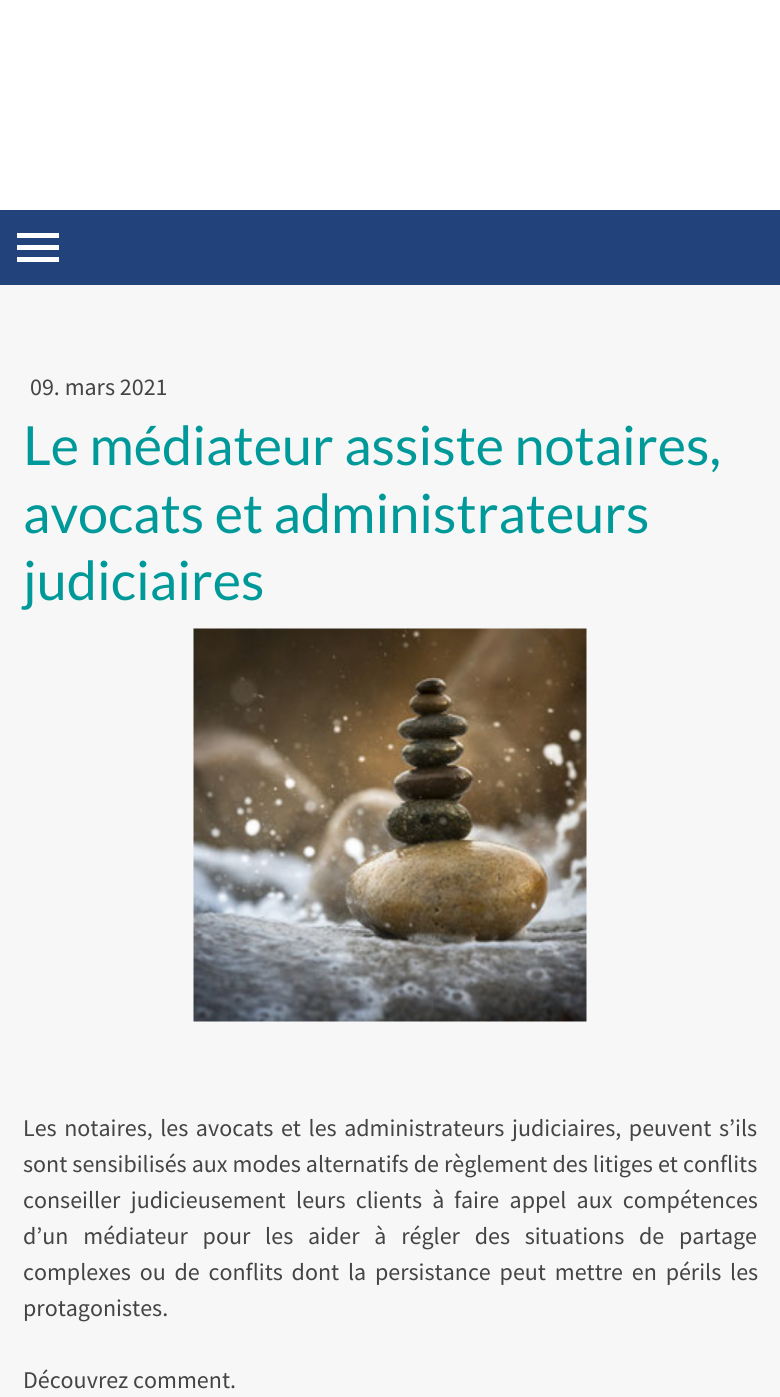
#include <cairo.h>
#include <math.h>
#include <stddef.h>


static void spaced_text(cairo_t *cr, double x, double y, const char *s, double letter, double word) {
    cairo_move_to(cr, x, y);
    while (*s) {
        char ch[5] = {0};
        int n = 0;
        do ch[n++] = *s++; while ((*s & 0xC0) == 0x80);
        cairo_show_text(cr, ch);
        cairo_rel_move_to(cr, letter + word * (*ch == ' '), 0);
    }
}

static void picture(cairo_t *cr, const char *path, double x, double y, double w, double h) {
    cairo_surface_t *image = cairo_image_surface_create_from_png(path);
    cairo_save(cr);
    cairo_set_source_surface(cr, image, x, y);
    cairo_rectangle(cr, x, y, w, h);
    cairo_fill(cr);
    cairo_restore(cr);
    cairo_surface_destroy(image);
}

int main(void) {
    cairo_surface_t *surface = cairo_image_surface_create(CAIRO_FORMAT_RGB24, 780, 1397);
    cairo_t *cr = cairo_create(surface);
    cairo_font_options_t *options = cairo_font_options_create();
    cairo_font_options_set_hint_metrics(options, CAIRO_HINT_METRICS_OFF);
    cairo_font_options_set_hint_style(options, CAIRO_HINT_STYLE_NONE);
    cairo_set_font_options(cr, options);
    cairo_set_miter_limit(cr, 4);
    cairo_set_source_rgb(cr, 1, 1, 1);
    cairo_paint(cr);
    cairo_set_source_rgb(cr, 0.133, 0.259, 0.486);
    cairo_rectangle(cr, 0, 210, 780, 75);
    cairo_fill(cr);
    cairo_set_source_rgb(cr, 1, 1, 1);
    cairo_rectangle(cr, 17, 245, 42, 5);
    cairo_fill(cr);
    cairo_rectangle(cr, 17, 233, 42, 5);
    cairo_fill(cr);
    cairo_rectangle(cr, 17, 257, 42, 5);
    cairo_fill(cr);
    cairo_set_source_rgb(cr, 0.965, 0.965, 0.965);
    cairo_rectangle(cr, 0, 285, 780, 1112);
    cairo_fill(cr);
    cairo_select_font_face(cr, "Source Sans Pro", CAIRO_FONT_SLANT_NORMAL, CAIRO_FONT_WEIGHT_NORMAL);
    cairo_set_font_size(cr, 24);
    cairo_set_source_rgb(cr, 0.267, 0.267, 0.267);
    cairo_move_to(cr, 30, 395);
    cairo_show_text(cr, "09. mars 2021");
    cairo_select_font_face(cr, "Lato", CAIRO_FONT_SLANT_NORMAL, CAIRO_FONT_WEIGHT_NORMAL);
    cairo_set_font_size(cr, 54);
    cairo_set_source_rgb(cr, 0, 0.6, 0.6);
    cairo_move_to(cr, 23, 465);
    cairo_show_text(cr, "Le médiateur assiste notaires,");
    cairo_move_to(cr, 23, 533);
    cairo_show_text(cr, "avocats et administrateurs");
    cairo_move_to(cr, 23, 600);
    cairo_show_text(cr, "judiciaires");
    picture(cr, "img1.png", 193, 628, 394, 394);
    cairo_select_font_face(cr, "Source Sans Pro", CAIRO_FONT_SLANT_NORMAL, CAIRO_FONT_WEIGHT_NORMAL);
    cairo_set_font_size(cr, 24);
    cairo_set_source_rgb(cr, 0.267, 0.267, 0.267);
    spaced_text(cr, 23, 1136, "Les notaires, les avocats et les administrateurs judiciaires, peuvent s’ils", 0, 2.75);
    spaced_text(cr, 23, 1172, "sont sensibilisés aux modes alternatifs de règlement des litiges et conflits", 0, 0.25);
    spaced_text(cr, 23, 1208, "conseiller judicieusement leurs clients à", 0, 5.5);
    spaced_text(cr, 454, 1208, "faire appel aux compétences", 0, 5.5);
    spaced_text(cr, 23, 1244, "d’un médiateur pour les aider à régler des situations de partage", 0, 10);
    spaced_text(cr, 23, 1280, "complexes ou de conflits dont la persistance peut mettre en périls les", 0, 4);
    cairo_move_to(cr, 23, 1316);
    cairo_show_text(cr, "protagonistes.");
    cairo_move_to(cr, 23, 1388);
    cairo_show_text(cr, "Découvrez comment.");
    cairo_surface_write_to_png(surface, "page.png");
    cairo_font_options_destroy(options);
    cairo_destroy(cr);
    cairo_surface_destroy(surface);
    return 0;
}
